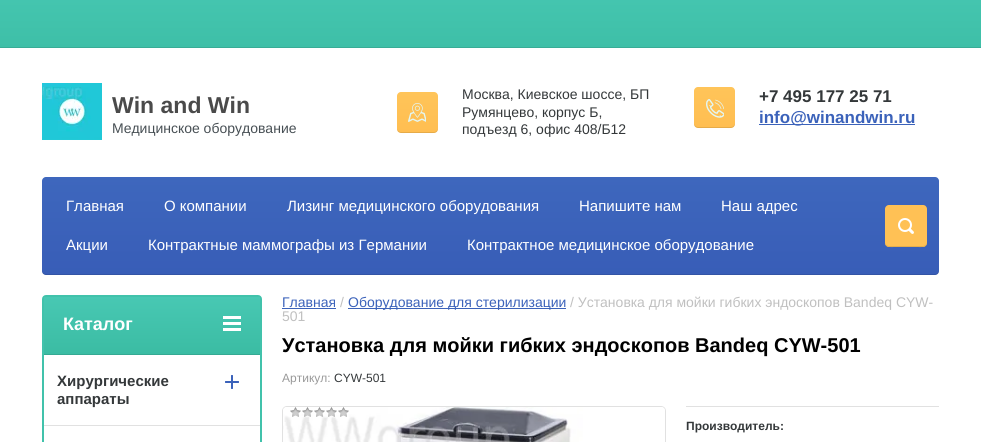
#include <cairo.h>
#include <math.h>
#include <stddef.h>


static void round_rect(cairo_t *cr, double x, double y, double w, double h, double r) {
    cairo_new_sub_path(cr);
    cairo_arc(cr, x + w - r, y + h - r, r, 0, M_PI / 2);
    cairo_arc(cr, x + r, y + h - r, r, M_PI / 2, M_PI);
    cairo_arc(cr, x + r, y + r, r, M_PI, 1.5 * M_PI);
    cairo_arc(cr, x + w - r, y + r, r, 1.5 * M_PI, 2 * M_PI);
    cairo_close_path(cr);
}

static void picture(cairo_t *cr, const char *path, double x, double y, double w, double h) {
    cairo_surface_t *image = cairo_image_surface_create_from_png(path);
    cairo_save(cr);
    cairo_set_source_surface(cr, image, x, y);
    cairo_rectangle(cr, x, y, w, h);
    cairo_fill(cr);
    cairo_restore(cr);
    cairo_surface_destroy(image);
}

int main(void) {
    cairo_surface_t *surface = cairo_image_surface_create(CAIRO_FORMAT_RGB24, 981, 442);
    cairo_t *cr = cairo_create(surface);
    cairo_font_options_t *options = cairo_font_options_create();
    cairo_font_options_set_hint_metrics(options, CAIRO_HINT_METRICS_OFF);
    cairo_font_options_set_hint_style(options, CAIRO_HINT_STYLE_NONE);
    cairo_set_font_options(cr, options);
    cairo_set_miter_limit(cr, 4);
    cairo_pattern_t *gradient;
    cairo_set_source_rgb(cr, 1, 1, 1);
    cairo_paint(cr);
    gradient = cairo_pattern_create_linear(491, 48, 491, 0);
    cairo_pattern_add_color_stop_rgba(gradient, 0, 0.243, 0.749, 0.655, 1);
    cairo_pattern_add_color_stop_rgba(gradient, 1, 0.267, 0.773, 0.686, 1);
    cairo_set_source(cr, gradient);
    cairo_pattern_destroy(gradient);
    cairo_rectangle(cr, 0, 0, 981, 47);
    cairo_fill(cr);
    cairo_set_source_rgb(cr, 0.22, 0.675, 0.588);
    cairo_rectangle(cr, 0, 47, 981, 1);
    cairo_fill(cr);
    picture(cr, "img1.png", 42, 83, 60, 57);
    cairo_select_font_face(cr, "Liberation Sans", CAIRO_FONT_SLANT_NORMAL, CAIRO_FONT_WEIGHT_BOLD);
    cairo_set_font_size(cr, 23);
    cairo_set_source_rgb(cr, 0.29, 0.29, 0.29);
    cairo_move_to(cr, 112, 113);
    cairo_show_text(cr, "Win and Win");
    cairo_select_font_face(cr, "Liberation Sans", CAIRO_FONT_SLANT_NORMAL, CAIRO_FONT_WEIGHT_NORMAL);
    cairo_set_font_size(cr, 14);
    cairo_set_source_rgb(cr, 0.278, 0.31, 0.329);
    cairo_move_to(cr, 112, 133);
    cairo_show_text(cr, "Медицинское оборудование");
    gradient = cairo_pattern_create_linear(418, 133, 418, 92);
    cairo_pattern_add_color_stop_rgba(gradient, 0, 1, 0.745, 0.318, 1);
    cairo_pattern_add_color_stop_rgba(gradient, 1, 1, 0.769, 0.349, 1);
    cairo_set_source(cr, gradient);
    cairo_pattern_destroy(gradient);
    round_rect(cr, 397, 92, 41, 41, 4);
    cairo_fill(cr);
    cairo_set_source_rgba(cr, 0, 0, 0, 0.1);
    cairo_new_path(cr);
    cairo_move_to(cr, 397, 128);
    cairo_curve_to(cr, 397, 134, 402, 133, 406, 133);
    cairo_line_to(cr, 428, 133);
    cairo_curve_to(cr, 433, 133, 438, 134, 438, 128);
    cairo_curve_to(cr, 438, 130, 436, 132, 434, 132);
    cairo_line_to(cr, 401, 132);
    cairo_curve_to(cr, 399, 132, 397, 130, 397, 128);
    cairo_close_path(cr);
    cairo_fill(cr);
    picture(cr, "img2.png", 408, 103, 18, 19);
    cairo_set_source_rgb(cr, 0.204, 0.22, 0.227);
    cairo_move_to(cr, 462, 99);
    cairo_show_text(cr, "Москва, Киевское шоссе, БП");
    cairo_move_to(cr, 462, 117);
    cairo_show_text(cr, "Румянцево, корпус Б,");
    cairo_move_to(cr, 462, 134);
    cairo_show_text(cr, "подъезд 6, офис 408/Б12");
    gradient = cairo_pattern_create_linear(715, 128, 715, 87);
    cairo_pattern_add_color_stop_rgba(gradient, 0, 1, 0.745, 0.318, 1);
    cairo_pattern_add_color_stop_rgba(gradient, 1, 1, 0.769, 0.349, 1);
    cairo_set_source(cr, gradient);
    cairo_pattern_destroy(gradient);
    round_rect(cr, 694, 87, 41, 41, 4);
    cairo_fill(cr);
    cairo_set_source_rgba(cr, 0, 0, 0, 0.1);
    cairo_new_path(cr);
    cairo_move_to(cr, 694, 123);
    cairo_curve_to(cr, 694, 129, 699, 128, 704, 128);
    cairo_line_to(cr, 726, 128);
    cairo_curve_to(cr, 730, 128, 735, 129, 735, 123);
    cairo_curve_to(cr, 735, 125, 733, 127, 731, 127);
    cairo_line_to(cr, 698, 127);
    cairo_curve_to(cr, 696, 127, 694, 125, 694, 123);
    cairo_close_path(cr);
    cairo_fill(cr);
    picture(cr, "img3.png", 706, 99, 18, 19);
    cairo_select_font_face(cr, "Liberation Sans", CAIRO_FONT_SLANT_NORMAL, CAIRO_FONT_WEIGHT_BOLD);
    cairo_set_font_size(cr, 17);
    cairo_set_source_rgb(cr, 0.204, 0.22, 0.227);
    cairo_move_to(cr, 759, 102);
    cairo_show_text(cr, "+7 495 177 25 71");
    cairo_set_source_rgb(cr, 0.231, 0.384, 0.729);
    cairo_rectangle(cr, 759, 124, 156, 1);
    cairo_fill(cr);
    cairo_move_to(cr, 759, 123);
    cairo_show_text(cr, "info@winandwin.ru");
    gradient = cairo_pattern_create_linear(491, 275, 491, 177);
    cairo_pattern_add_color_stop_rgba(gradient, 0, 0.22, 0.365, 0.718, 1);
    cairo_pattern_add_color_stop_rgba(gradient, 1, 0.243, 0.404, 0.741, 1);
    cairo_set_source(cr, gradient);
    cairo_pattern_destroy(gradient);
    round_rect(cr, 42, 177, 897, 98, 4);
    cairo_fill(cr);
    cairo_set_source_rgba(cr, 0, 0, 0, 0.1);
    cairo_new_path(cr);
    cairo_move_to(cr, 42, 270);
    cairo_curve_to(cr, 42, 273, 43, 275, 46, 275);
    cairo_line_to(cr, 935, 275);
    cairo_curve_to(cr, 938, 275, 939, 273, 939, 270);
    cairo_curve_to(cr, 939, 272, 937, 274, 935, 274);
    cairo_line_to(cr, 46, 274);
    cairo_curve_to(cr, 44, 274, 42, 272, 42, 270);
    cairo_close_path(cr);
    cairo_fill(cr);
    cairo_select_font_face(cr, "Liberation Sans", CAIRO_FONT_SLANT_NORMAL, CAIRO_FONT_WEIGHT_NORMAL);
    cairo_set_font_size(cr, 15);
    cairo_set_source_rgb(cr, 1, 1, 1);
    cairo_move_to(cr, 66, 211);
    cairo_show_text(cr, "Главная");
    cairo_move_to(cr, 164, 211);
    cairo_show_text(cr, "О компании");
    cairo_move_to(cr, 287, 211);
    cairo_show_text(cr, "Лизинг медицинского оборудования");
    cairo_move_to(cr, 579, 211);
    cairo_show_text(cr, "Напишите нам");
    cairo_move_to(cr, 721, 211);
    cairo_show_text(cr, "Наш адрес");
    cairo_move_to(cr, 66, 250);
    cairo_show_text(cr, "Акции");
    cairo_move_to(cr, 148, 250);
    cairo_show_text(cr, "Контрактные маммографы из Германии");
    cairo_move_to(cr, 467, 250);
    cairo_show_text(cr, "Контрактное медицинское оборудование");
    cairo_set_source_rgb(cr, 1, 0.757, 0.333);
    round_rect(cr, 885, 205, 42, 42, 4);
    cairo_fill(cr);
    cairo_set_source_rgb(cr, 0.898, 0.682, 0.302);
    cairo_new_path(cr);
    cairo_move_to(cr, 885, 242);
    cairo_curve_to(cr, 885, 248, 890, 247, 895, 247);
    cairo_line_to(cr, 917, 247);
    cairo_curve_to(cr, 922, 247, 927, 248, 927, 242);
    cairo_curve_to(cr, 927, 244, 925, 246, 923, 246);
    cairo_line_to(cr, 889, 246);
    cairo_curve_to(cr, 887, 246, 885, 244, 885, 242);
    cairo_close_path(cr);
    cairo_fill(cr);
    picture(cr, "img4.png", 898, 218, 16, 16);
    round_rect(cr, 43, 296, 218, 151, 3);
    cairo_set_source_rgb(cr, 0.255, 0.761, 0.671);
    cairo_stroke(cr);
    gradient = cairo_pattern_create_linear(152, 355, 152, 297);
    cairo_pattern_add_color_stop_rgba(gradient, 0, 0.231, 0.737, 0.639, 1);
    cairo_pattern_add_color_stop_rgba(gradient, 1, 0.282, 0.784, 0.702, 1);
    cairo_set_source(cr, gradient);
    cairo_pattern_destroy(gradient);
    cairo_rectangle(cr, 44, 297, 216, 57);
    cairo_fill(cr);
    cairo_set_source_rgb(cr, 0.208, 0.663, 0.576);
    cairo_rectangle(cr, 44, 354, 216, 1);
    cairo_fill(cr);
    cairo_select_font_face(cr, "Liberation Sans", CAIRO_FONT_SLANT_NORMAL, CAIRO_FONT_WEIGHT_BOLD);
    cairo_set_font_size(cr, 18);
    cairo_set_source_rgb(cr, 1, 1, 1);
    cairo_move_to(cr, 63, 330);
    cairo_show_text(cr, "Каталог");
    cairo_rectangle(cr, 223, 316, 18, 3);
    cairo_fill(cr);
    cairo_rectangle(cr, 223, 322, 18, 3);
    cairo_fill(cr);
    cairo_rectangle(cr, 223, 328, 18, 3);
    cairo_fill(cr);
    cairo_set_font_size(cr, 15);
    cairo_set_source_rgb(cr, 0.204, 0.22, 0.227);
    cairo_move_to(cr, 57, 386);
    cairo_show_text(cr, "Хирургические");
    cairo_move_to(cr, 57, 404);
    cairo_show_text(cr, "аппараты");
    picture(cr, "img5.png", 225, 375, 14, 14);
    cairo_set_source_rgb(cr, 0.882, 0.882, 0.882);
    cairo_rectangle(cr, 44, 425, 216, 1);
    cairo_fill(cr);
    cairo_select_font_face(cr, "Liberation Sans", CAIRO_FONT_SLANT_NORMAL, CAIRO_FONT_WEIGHT_NORMAL);
    cairo_set_font_size(cr, 14);
    cairo_set_source_rgb(cr, 0.231, 0.384, 0.729);
    cairo_move_to(cr, 282, 307);
    cairo_show_text(cr, "Главная");
    cairo_rectangle(cr, 282, 308, 54, 1);
    cairo_fill(cr);
    cairo_set_source_rgb(cr, 0.753, 0.753, 0.753);
    cairo_move_to(cr, 340, 307);
    cairo_show_text(cr, "/");
    cairo_set_source_rgb(cr, 0.231, 0.384, 0.729);
    cairo_rectangle(cr, 348, 308, 218, 1);
    cairo_fill(cr);
    cairo_move_to(cr, 348, 307);
    cairo_show_text(cr, "Оборудование для стерилизации");
    cairo_set_source_rgb(cr, 0.753, 0.753, 0.753);
    cairo_move_to(cr, 570, 307);
    cairo_show_text(cr, "/ Установка для мойки гибких эндоскопов Bandeq CYW-");
    cairo_move_to(cr, 282, 321);
    cairo_show_text(cr, "501");
    cairo_select_font_face(cr, "Liberation Sans", CAIRO_FONT_SLANT_NORMAL, CAIRO_FONT_WEIGHT_BOLD);
    cairo_set_font_size(cr, 20);
    cairo_set_source_rgb(cr, 0, 0, 0);
    cairo_move_to(cr, 282, 352);
    cairo_show_text(cr, "Установка для мойки гибких эндоскопов Bandeq CYW-501");
    cairo_select_font_face(cr, "Liberation Sans", CAIRO_FONT_SLANT_NORMAL, CAIRO_FONT_WEIGHT_NORMAL);
    cairo_set_font_size(cr, 12);
    cairo_set_source_rgb(cr, 0.6, 0.6, 0.6);
    cairo_move_to(cr, 282, 382);
    cairo_show_text(cr, "Артикул:");
    cairo_set_source_rgb(cr, 0.204, 0.22, 0.227);
    cairo_move_to(cr, 334, 382);
    cairo_show_text(cr, "CYW-501");
    round_rect(cr, 282.5, 406.5, 383, 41, 4.5);
    cairo_set_source_rgb(cr, 0.882, 0.882, 0.882);
    cairo_set_line_width(cr, 1);
    cairo_stroke(cr);
    picture(cr, "img6.png", 283, 407, 382, 35);
    picture(cr, "img7.png", 290, 407, 59, 10);
    cairo_rectangle(cr, 686, 406, 253, 1);
    cairo_fill(cr);
    cairo_select_font_face(cr, "Liberation Sans", CAIRO_FONT_SLANT_NORMAL, CAIRO_FONT_WEIGHT_BOLD);
    cairo_set_source_rgb(cr, 0.204, 0.22, 0.227);
    cairo_move_to(cr, 686, 430);
    cairo_show_text(cr, "Производитель:");
    cairo_surface_write_to_png(surface, "page.png");
    cairo_font_options_destroy(options);
    cairo_destroy(cr);
    cairo_surface_destroy(surface);
    return 0;
}
